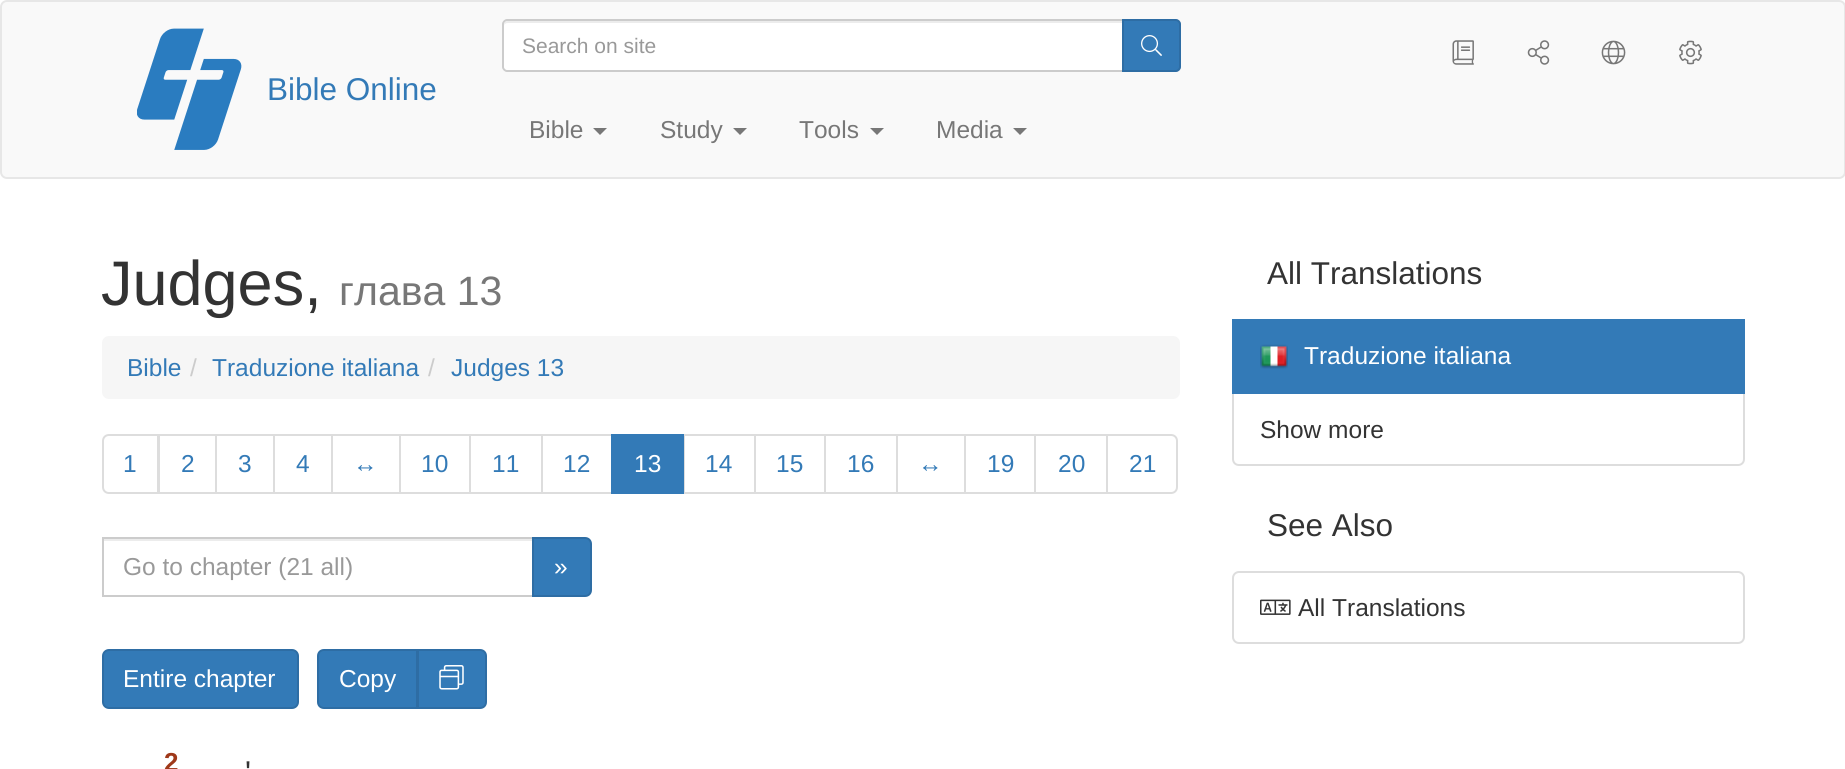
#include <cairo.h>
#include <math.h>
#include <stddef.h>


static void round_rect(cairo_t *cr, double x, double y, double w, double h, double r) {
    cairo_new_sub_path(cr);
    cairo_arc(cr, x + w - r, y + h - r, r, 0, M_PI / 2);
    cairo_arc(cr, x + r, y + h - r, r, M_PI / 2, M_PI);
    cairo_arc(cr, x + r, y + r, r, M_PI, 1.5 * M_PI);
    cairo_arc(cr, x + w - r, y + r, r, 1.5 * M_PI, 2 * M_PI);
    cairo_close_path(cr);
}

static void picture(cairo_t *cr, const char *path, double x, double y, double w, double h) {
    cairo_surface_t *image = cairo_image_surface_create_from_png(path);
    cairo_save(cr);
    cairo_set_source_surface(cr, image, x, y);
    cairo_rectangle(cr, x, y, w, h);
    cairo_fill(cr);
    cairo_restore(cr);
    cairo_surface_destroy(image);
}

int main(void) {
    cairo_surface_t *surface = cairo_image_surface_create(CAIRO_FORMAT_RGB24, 1845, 769);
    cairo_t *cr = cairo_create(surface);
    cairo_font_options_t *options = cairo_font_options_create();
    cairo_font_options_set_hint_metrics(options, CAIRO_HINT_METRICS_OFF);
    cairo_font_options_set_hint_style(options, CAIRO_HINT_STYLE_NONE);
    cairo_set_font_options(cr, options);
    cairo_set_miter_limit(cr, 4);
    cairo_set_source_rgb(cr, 1, 1, 1);
    cairo_paint(cr);
    cairo_set_source_rgb(cr, 0.973, 0.973, 0.973);
    round_rect(cr, 1, 1, 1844, 177, 6);
    cairo_fill_preserve(cr);
    cairo_set_source_rgb(cr, 0.906, 0.906, 0.906);
    cairo_stroke(cr);
    picture(cr, "img1.png", 137, 28, 105, 122);
    cairo_select_font_face(cr, "Liberation Sans", CAIRO_FONT_SLANT_NORMAL, CAIRO_FONT_WEIGHT_NORMAL);
    cairo_set_font_size(cr, 31.5);
    cairo_set_source_rgb(cr, 0.2, 0.478, 0.718);
    cairo_move_to(cr, 267, 100);
    cairo_show_text(cr, "Bible Online");
    cairo_set_source_rgb(cr, 1, 1, 1);
    cairo_new_path(cr);
    cairo_move_to(cr, 507, 19);
    cairo_line_to(cr, 1124, 19);
    cairo_line_to(cr, 1124, 72);
    cairo_line_to(cr, 507, 72);
    cairo_curve_to(cr, 504, 72, 502, 70, 502, 67);
    cairo_line_to(cr, 502, 24);
    cairo_curve_to(cr, 502, 21, 504, 19, 507, 19);
    cairo_close_path(cr);
    cairo_fill(cr);
    cairo_set_source_rgb(cr, 0.925, 0.925, 0.925);
    cairo_new_path(cr);
    cairo_move_to(cr, 508, 23);
    cairo_line_to(cr, 1122, 23);
    cairo_line_to(cr, 1122, 21);
    cairo_line_to(cr, 508, 21);
    cairo_curve_to(cr, 505, 21, 504, 23, 504, 26);
    cairo_curve_to(cr, 504, 24, 506, 23, 508, 23);
    cairo_close_path(cr);
    cairo_fill(cr);
    cairo_new_path(cr);
    cairo_move_to(cr, 507, 20);
    cairo_line_to(cr, 1123, 20);
    cairo_line_to(cr, 1123, 71);
    cairo_line_to(cr, 507, 71);
    cairo_curve_to(cr, 505, 71, 503, 69, 503, 67);
    cairo_line_to(cr, 503, 24);
    cairo_curve_to(cr, 503, 22, 505, 20, 507, 20);
    cairo_close_path(cr);
    cairo_set_source_rgb(cr, 0.8, 0.8, 0.8);
    cairo_stroke(cr);
    cairo_set_font_size(cr, 21);
    cairo_set_source_rgb(cr, 0.6, 0.6, 0.6);
    cairo_move_to(cr, 522, 53);
    cairo_show_text(cr, "Search on site");
    cairo_set_source_rgb(cr, 0.2, 0.478, 0.718);
    cairo_new_path(cr);
    cairo_move_to(cr, 1123, 20);
    cairo_line_to(cr, 1176, 20);
    cairo_curve_to(cr, 1178, 20, 1180, 22, 1180, 24);
    cairo_line_to(cr, 1180, 67);
    cairo_curve_to(cr, 1180, 69, 1178, 71, 1176, 71);
    cairo_line_to(cr, 1123, 71);
    cairo_close_path(cr);
    cairo_fill_preserve(cr);
    cairo_set_source_rgb(cr, 0.18, 0.427, 0.643);
    cairo_stroke(cr);
    picture(cr, "img2.png", 1141, 35, 21, 21);
    picture(cr, "img3.png", 1452, 40, 22, 25);
    picture(cr, "img4.png", 1527, 40, 23, 25);
    picture(cr, "img5.png", 1601, 40, 25, 25);
    picture(cr, "img6.png", 1679, 40, 23, 25);
    cairo_set_font_size(cr, 24.5);
    cairo_set_source_rgb(cr, 0.467, 0.467, 0.467);
    cairo_move_to(cr, 529, 138);
    cairo_show_text(cr, "Bible");
    cairo_new_path(cr);
    cairo_move_to(cr, 593, 128);
    cairo_line_to(cr, 607, 128);
    cairo_line_to(cr, 600, 135);
    cairo_close_path(cr);
    cairo_fill(cr);
    cairo_move_to(cr, 660, 138);
    cairo_show_text(cr, "Study");
    cairo_new_path(cr);
    cairo_move_to(cr, 733, 128);
    cairo_line_to(cr, 747, 128);
    cairo_line_to(cr, 740, 135);
    cairo_close_path(cr);
    cairo_fill(cr);
    cairo_move_to(cr, 799, 138);
    cairo_show_text(cr, "Tools");
    cairo_new_path(cr);
    cairo_move_to(cr, 870, 128);
    cairo_line_to(cr, 884, 128);
    cairo_line_to(cr, 877, 135);
    cairo_close_path(cr);
    cairo_fill(cr);
    cairo_move_to(cr, 936, 138);
    cairo_show_text(cr, "Media");
    cairo_new_path(cr);
    cairo_move_to(cr, 1013, 128);
    cairo_line_to(cr, 1027, 128);
    cairo_line_to(cr, 1020, 135);
    cairo_close_path(cr);
    cairo_fill(cr);
    cairo_set_font_size(cr, 63);
    cairo_set_source_rgb(cr, 0.2, 0.2, 0.2);
    cairo_move_to(cr, 101, 305);
    cairo_show_text(cr, "Judges,");
    cairo_set_font_size(cr, 41);
    cairo_set_source_rgb(cr, 0.467, 0.467, 0.467);
    cairo_move_to(cr, 339, 305);
    cairo_show_text(cr, "глава 13");
    cairo_set_source_rgb(cr, 0.961, 0.961, 0.961);
    round_rect(cr, 102, 336, 1078, 63, 7);
    cairo_fill(cr);
    cairo_set_font_size(cr, 24.5);
    cairo_set_source_rgb(cr, 0.2, 0.478, 0.718);
    cairo_move_to(cr, 127, 376);
    cairo_show_text(cr, "Bible");
    cairo_set_source_rgb(cr, 0.8, 0.8, 0.8);
    cairo_move_to(cr, 190, 376);
    cairo_show_text(cr, "/");
    cairo_set_source_rgb(cr, 0.2, 0.478, 0.718);
    cairo_move_to(cr, 212, 376);
    cairo_show_text(cr, "Traduzione italiana");
    cairo_set_source_rgb(cr, 0.8, 0.8, 0.8);
    cairo_move_to(cr, 428, 376);
    cairo_show_text(cr, "/");
    cairo_set_source_rgb(cr, 0.2, 0.478, 0.718);
    cairo_move_to(cr, 451, 376);
    cairo_show_text(cr, "Judges 13");
    cairo_new_path(cr);
    cairo_move_to(cr, 109, 435);
    cairo_line_to(cr, 158, 435);
    cairo_line_to(cr, 158, 493);
    cairo_line_to(cr, 109, 493);
    cairo_curve_to(cr, 105.5, 493, 103, 490.5, 103, 487);
    cairo_line_to(cr, 103, 441);
    cairo_curve_to(cr, 103, 437.5, 105.5, 435, 109, 435);
    cairo_close_path(cr);
    cairo_set_source_rgb(cr, 0.867, 0.867, 0.867);
    cairo_stroke(cr);
    cairo_set_source_rgb(cr, 0.2, 0.478, 0.718);
    cairo_move_to(cr, 123, 472);
    cairo_show_text(cr, "1");
    cairo_rectangle(cr, 159, 435, 57, 58);
    cairo_set_source_rgb(cr, 0.867, 0.867, 0.867);
    cairo_stroke(cr);
    cairo_set_source_rgb(cr, 0.2, 0.478, 0.718);
    cairo_move_to(cr, 181, 472);
    cairo_show_text(cr, "2");
    cairo_rectangle(cr, 216, 435, 58, 58);
    cairo_set_source_rgb(cr, 0.867, 0.867, 0.867);
    cairo_stroke(cr);
    cairo_set_source_rgb(cr, 0.2, 0.478, 0.718);
    cairo_move_to(cr, 238, 472);
    cairo_show_text(cr, "3");
    cairo_rectangle(cr, 274, 435, 58, 58);
    cairo_set_source_rgb(cr, 0.867, 0.867, 0.867);
    cairo_stroke(cr);
    cairo_set_source_rgb(cr, 0.2, 0.478, 0.718);
    cairo_move_to(cr, 296, 472);
    cairo_show_text(cr, "4");
    cairo_rectangle(cr, 332, 435, 68, 58);
    cairo_set_source_rgb(cr, 0.867, 0.867, 0.867);
    cairo_stroke(cr);
    cairo_set_source_rgb(cr, 0.2, 0.478, 0.718);
    cairo_move_to(cr, 353, 472);
    cairo_show_text(cr, "↔");
    cairo_rectangle(cr, 400, 435, 70, 58);
    cairo_set_source_rgb(cr, 0.867, 0.867, 0.867);
    cairo_stroke(cr);
    cairo_set_source_rgb(cr, 0.2, 0.478, 0.718);
    cairo_move_to(cr, 421, 472);
    cairo_show_text(cr, "10");
    cairo_rectangle(cr, 470, 435, 72, 58);
    cairo_set_source_rgb(cr, 0.867, 0.867, 0.867);
    cairo_stroke(cr);
    cairo_set_source_rgb(cr, 0.2, 0.478, 0.718);
    cairo_move_to(cr, 492, 472);
    cairo_show_text(cr, "11");
    cairo_rectangle(cr, 542, 435, 70, 58);
    cairo_set_source_rgb(cr, 0.867, 0.867, 0.867);
    cairo_stroke(cr);
    cairo_set_source_rgb(cr, 0.2, 0.478, 0.718);
    cairo_move_to(cr, 563, 472);
    cairo_show_text(cr, "12");
    cairo_rectangle(cr, 684, 435, 71, 58);
    cairo_set_source_rgb(cr, 0.867, 0.867, 0.867);
    cairo_stroke(cr);
    cairo_set_source_rgb(cr, 0.2, 0.478, 0.718);
    cairo_rectangle(cr, 611, 434, 73, 60);
    cairo_fill(cr);
    cairo_set_source_rgb(cr, 1, 1, 1);
    cairo_move_to(cr, 634, 472);
    cairo_show_text(cr, "13");
    cairo_set_source_rgb(cr, 0.2, 0.478, 0.718);
    cairo_move_to(cr, 705, 472);
    cairo_show_text(cr, "14");
    cairo_rectangle(cr, 755, 435, 70, 58);
    cairo_set_source_rgb(cr, 0.867, 0.867, 0.867);
    cairo_stroke(cr);
    cairo_set_source_rgb(cr, 0.2, 0.478, 0.718);
    cairo_move_to(cr, 776, 472);
    cairo_show_text(cr, "15");
    cairo_rectangle(cr, 825, 435, 72, 58);
    cairo_set_source_rgb(cr, 0.867, 0.867, 0.867);
    cairo_stroke(cr);
    cairo_set_source_rgb(cr, 0.2, 0.478, 0.718);
    cairo_move_to(cr, 847, 472);
    cairo_show_text(cr, "16");
    cairo_rectangle(cr, 897, 435, 68, 58);
    cairo_set_source_rgb(cr, 0.867, 0.867, 0.867);
    cairo_stroke(cr);
    cairo_set_source_rgb(cr, 0.2, 0.478, 0.718);
    cairo_move_to(cr, 918, 472);
    cairo_show_text(cr, "↔");
    cairo_rectangle(cr, 965, 435, 70, 58);
    cairo_set_source_rgb(cr, 0.867, 0.867, 0.867);
    cairo_stroke(cr);
    cairo_set_source_rgb(cr, 0.2, 0.478, 0.718);
    cairo_move_to(cr, 987, 472);
    cairo_show_text(cr, "19");
    cairo_rectangle(cr, 1035, 435, 72, 58);
    cairo_set_source_rgb(cr, 0.867, 0.867, 0.867);
    cairo_stroke(cr);
    cairo_set_source_rgb(cr, 0.2, 0.478, 0.718);
    cairo_move_to(cr, 1058, 472);
    cairo_show_text(cr, "20");
    cairo_set_source_rgb(cr, 1, 1, 1);
    cairo_new_path(cr);
    cairo_move_to(cr, 1107, 435);
    cairo_line_to(cr, 1171, 435);
    cairo_curve_to(cr, 1174.5, 435, 1177, 437.5, 1177, 441);
    cairo_line_to(cr, 1177, 487);
    cairo_curve_to(cr, 1177, 490.5, 1174.5, 493, 1171, 493);
    cairo_line_to(cr, 1107, 493);
    cairo_close_path(cr);
    cairo_fill_preserve(cr);
    cairo_set_source_rgb(cr, 0.867, 0.867, 0.867);
    cairo_stroke(cr);
    cairo_set_source_rgb(cr, 0.2, 0.478, 0.718);
    cairo_move_to(cr, 1129, 472);
    cairo_show_text(cr, "21");
    cairo_set_source_rgb(cr, 0.925, 0.925, 0.925);
    cairo_rectangle(cr, 103, 539, 429, 2);
    cairo_fill(cr);
    cairo_rectangle(cr, 103, 538, 430, 58);
    cairo_set_source_rgb(cr, 0.8, 0.8, 0.8);
    cairo_stroke(cr);
    cairo_set_source_rgb(cr, 0.6, 0.6, 0.6);
    cairo_move_to(cr, 123, 575);
    cairo_show_text(cr, "Go to chapter (21 all)");
    cairo_set_source_rgb(cr, 0.2, 0.478, 0.718);
    cairo_new_path(cr);
    cairo_move_to(cr, 533, 538);
    cairo_line_to(cr, 585, 538);
    cairo_curve_to(cr, 588.5, 538, 591, 540.5, 591, 544);
    cairo_line_to(cr, 591, 590);
    cairo_curve_to(cr, 591, 593.5, 588.5, 596, 585, 596);
    cairo_line_to(cr, 533, 596);
    cairo_close_path(cr);
    cairo_fill_preserve(cr);
    cairo_set_source_rgb(cr, 0.18, 0.427, 0.643);
    cairo_stroke(cr);
    cairo_set_source_rgb(cr, 1, 1, 1);
    cairo_move_to(cr, 554, 575);
    cairo_show_text(cr, "»");
    cairo_set_source_rgb(cr, 0.2, 0.478, 0.718);
    round_rect(cr, 103, 650, 195, 58, 6);
    cairo_fill_preserve(cr);
    cairo_set_source_rgb(cr, 0.18, 0.427, 0.643);
    cairo_stroke(cr);
    cairo_set_source_rgb(cr, 1, 1, 1);
    cairo_move_to(cr, 123, 687);
    cairo_show_text(cr, "Entire chapter");
    cairo_set_source_rgb(cr, 0.2, 0.478, 0.718);
    cairo_new_path(cr);
    cairo_move_to(cr, 324, 650);
    cairo_line_to(cr, 417, 650);
    cairo_line_to(cr, 417, 708);
    cairo_line_to(cr, 324, 708);
    cairo_curve_to(cr, 320.5, 708, 318, 705.5, 318, 702);
    cairo_line_to(cr, 318, 656);
    cairo_curve_to(cr, 318, 652.5, 320.5, 650, 324, 650);
    cairo_close_path(cr);
    cairo_fill_preserve(cr);
    cairo_set_source_rgb(cr, 0.18, 0.427, 0.643);
    cairo_stroke(cr);
    cairo_set_source_rgb(cr, 1, 1, 1);
    cairo_move_to(cr, 339, 687);
    cairo_show_text(cr, "Copy");
    cairo_set_source_rgb(cr, 0.2, 0.478, 0.718);
    cairo_new_path(cr);
    cairo_move_to(cr, 418, 650);
    cairo_line_to(cr, 480, 650);
    cairo_curve_to(cr, 483.5, 650, 486, 652.5, 486, 656);
    cairo_line_to(cr, 486, 702);
    cairo_curve_to(cr, 486, 705.5, 483.5, 708, 480, 708);
    cairo_line_to(cr, 418, 708);
    cairo_close_path(cr);
    cairo_fill_preserve(cr);
    cairo_set_source_rgb(cr, 0.18, 0.427, 0.643);
    cairo_stroke(cr);
    picture(cr, "img7.png", 439, 665, 25, 25);
    cairo_select_font_face(cr, "Liberation Sans", CAIRO_FONT_SLANT_NORMAL, CAIRO_FONT_WEIGHT_BOLD);
    cairo_set_font_size(cr, 26);
    cairo_set_source_rgb(cr, 0.624, 0.22, 0.098);
    cairo_move_to(cr, 164, 771);
    cairo_show_text(cr, "2");
    cairo_select_font_face(cr, "Liberation Sans", CAIRO_FONT_SLANT_NORMAL, CAIRO_FONT_WEIGHT_NORMAL);
    cairo_set_font_size(cr, 31.5);
    cairo_set_source_rgb(cr, 0.2, 0.2, 0.2);
    cairo_move_to(cr, 245, 783);
    cairo_show_text(cr, "'");
    cairo_move_to(cr, 1267, 284);
    cairo_show_text(cr, "All Translations");
    cairo_new_path(cr);
    cairo_move_to(cr, 1233, 393);
    cairo_line_to(cr, 1744, 393);
    cairo_line_to(cr, 1744, 459);
    cairo_curve_to(cr, 1744, 462.5, 1741.5, 465, 1738, 465);
    cairo_line_to(cr, 1239, 465);
    cairo_curve_to(cr, 1235.5, 465, 1233, 462.5, 1233, 459);
    cairo_close_path(cr);
    cairo_set_source_rgb(cr, 0.867, 0.867, 0.867);
    cairo_stroke(cr);
    cairo_set_source_rgb(cr, 0.2, 0.478, 0.718);
    cairo_rectangle(cr, 1232, 319, 513, 75);
    cairo_fill(cr);
    picture(cr, "img8.png", 1260, 344, 28, 25);
    cairo_set_font_size(cr, 24.5);
    cairo_set_source_rgb(cr, 1, 1, 1);
    cairo_move_to(cr, 1304, 364);
    cairo_show_text(cr, "Traduzione italiana");
    cairo_set_source_rgb(cr, 0.2, 0.2, 0.2);
    cairo_move_to(cr, 1260, 438);
    cairo_show_text(cr, "Show more");
    cairo_set_font_size(cr, 31.5);
    cairo_move_to(cr, 1267, 536);
    cairo_show_text(cr, "See Also");
    round_rect(cr, 1233, 572, 511, 71, 6);
    cairo_set_source_rgb(cr, 0.867, 0.867, 0.867);
    cairo_stroke(cr);
    picture(cr, "img9.png", 1260, 599, 31, 16);
    cairo_set_font_size(cr, 24.5);
    cairo_set_source_rgb(cr, 0.2, 0.2, 0.2);
    cairo_move_to(cr, 1298, 616);
    cairo_show_text(cr, "All Translations");
    cairo_surface_write_to_png(surface, "page.png");
    cairo_font_options_destroy(options);
    cairo_destroy(cr);
    cairo_surface_destroy(surface);
    return 0;
}
